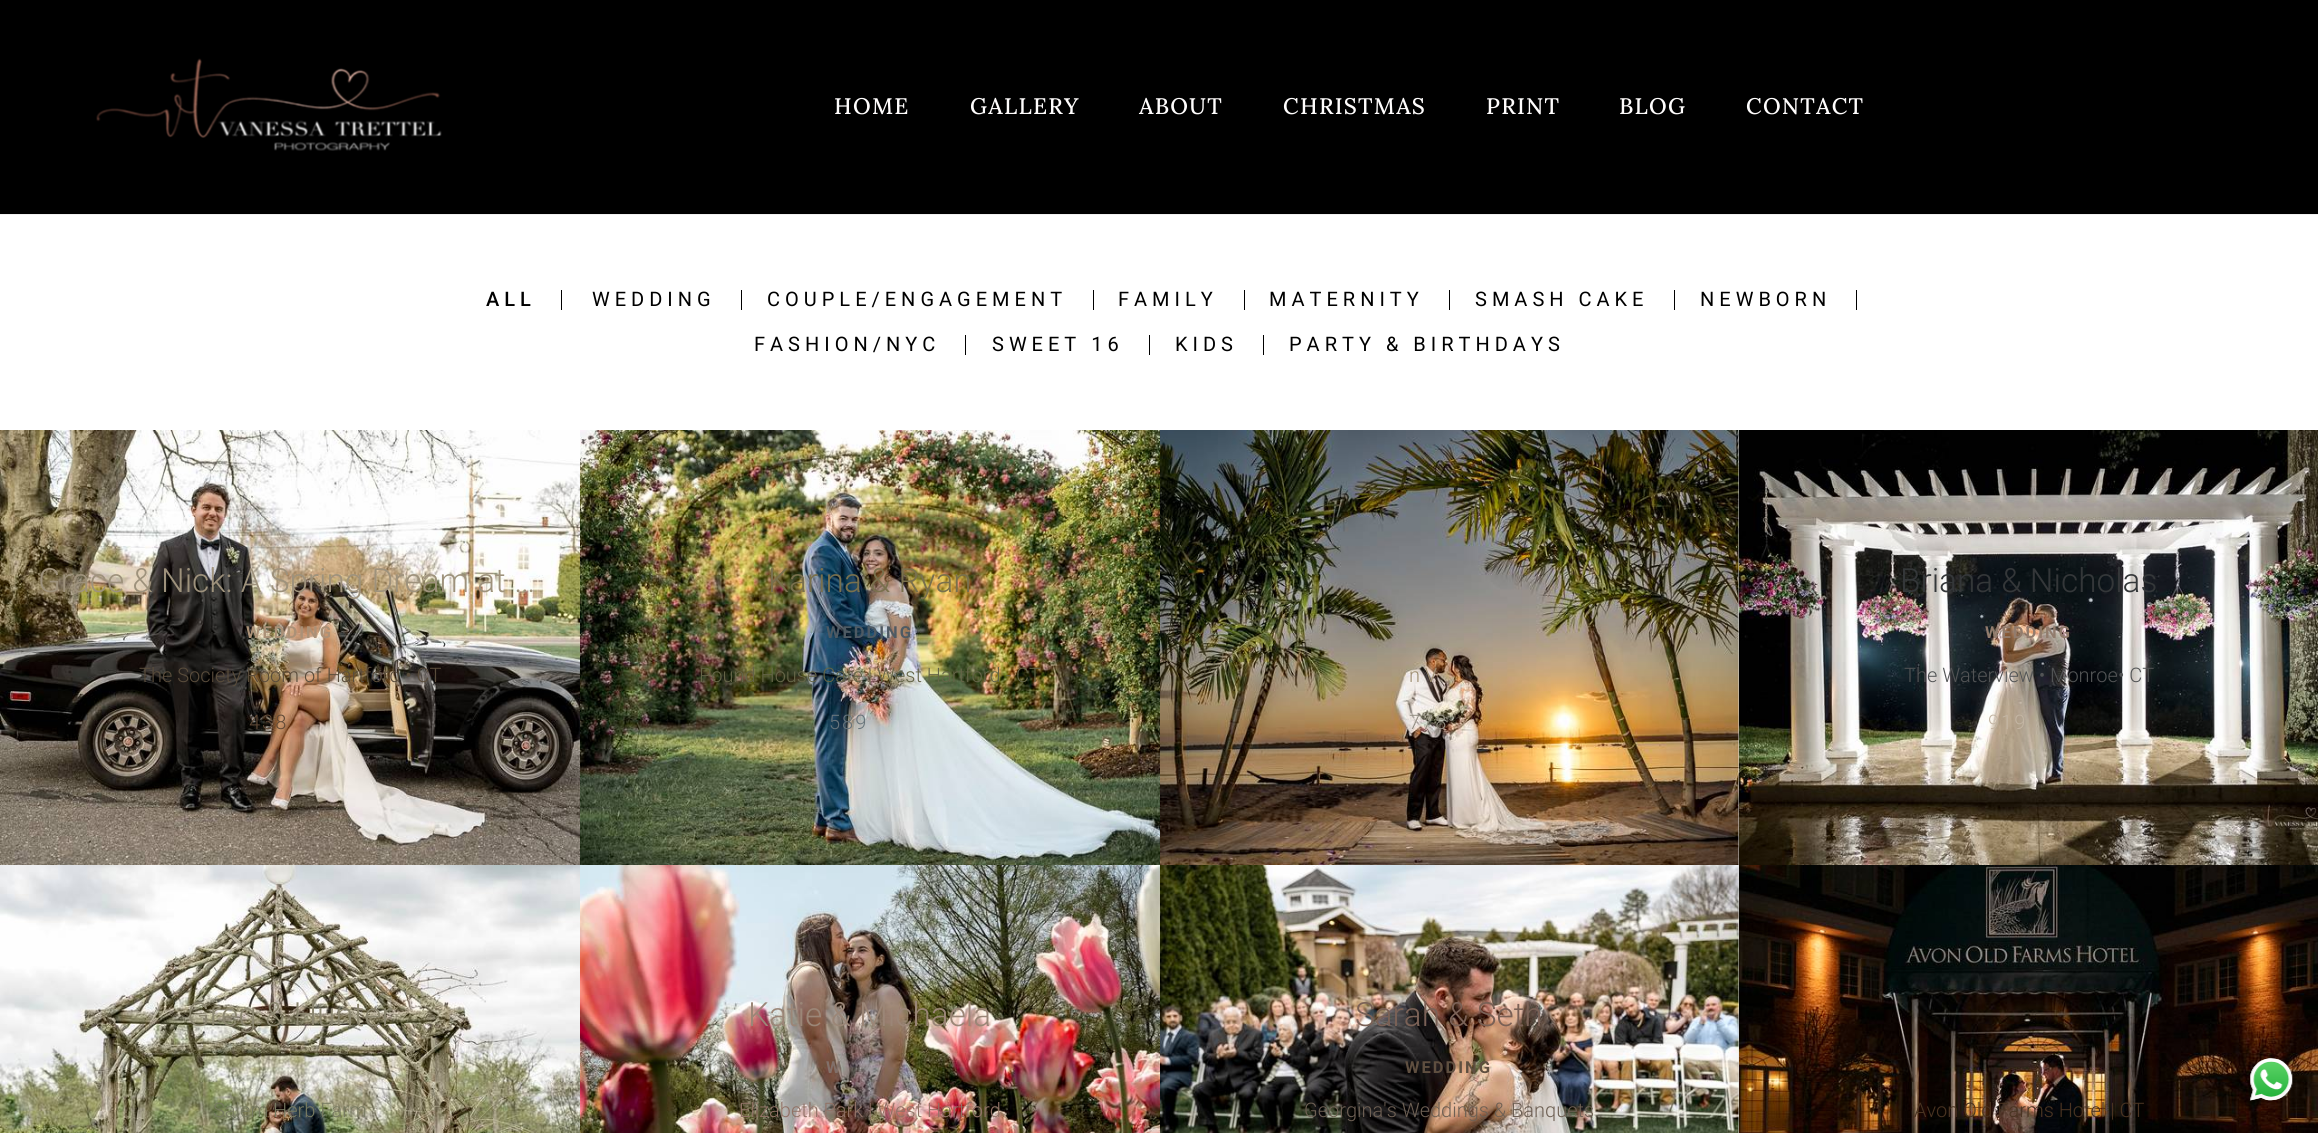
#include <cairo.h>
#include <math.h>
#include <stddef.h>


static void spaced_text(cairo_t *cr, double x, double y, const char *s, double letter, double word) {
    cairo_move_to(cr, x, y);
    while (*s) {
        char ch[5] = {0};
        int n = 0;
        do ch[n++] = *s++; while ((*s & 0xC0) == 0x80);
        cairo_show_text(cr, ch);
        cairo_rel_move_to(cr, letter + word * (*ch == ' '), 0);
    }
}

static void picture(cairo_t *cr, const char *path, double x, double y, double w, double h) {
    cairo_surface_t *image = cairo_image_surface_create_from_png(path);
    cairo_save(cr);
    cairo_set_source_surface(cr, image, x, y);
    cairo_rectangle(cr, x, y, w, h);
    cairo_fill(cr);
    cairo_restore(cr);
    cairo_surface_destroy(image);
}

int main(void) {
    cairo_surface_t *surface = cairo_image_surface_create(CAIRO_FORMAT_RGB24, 2318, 1133);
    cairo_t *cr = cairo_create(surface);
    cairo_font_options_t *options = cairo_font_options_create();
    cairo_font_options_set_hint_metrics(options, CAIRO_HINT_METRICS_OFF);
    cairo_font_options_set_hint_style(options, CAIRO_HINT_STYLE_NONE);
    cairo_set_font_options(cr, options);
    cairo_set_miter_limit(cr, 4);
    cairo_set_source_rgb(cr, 1, 1, 1);
    cairo_paint(cr);
    cairo_set_source_rgb(cr, 0, 0, 0);
    cairo_rectangle(cr, 0, 0, 2318, 214);
    cairo_fill(cr);
    picture(cr, "img1.png", 96, 58, 346, 93);
    cairo_select_font_face(cr, "Lora Medium", CAIRO_FONT_SLANT_NORMAL, CAIRO_FONT_WEIGHT_NORMAL);
    cairo_set_font_size(cr, 22.5);
    cairo_set_source_rgb(cr, 1, 0.992, 0.992);
    spaced_text(cr, 834, 114, "HOME", 1.25, 0);
    spaced_text(cr, 970, 114, "GALLERY", 1.25, 0);
    spaced_text(cr, 1139, 114, "ABOUT", 1.25, 0);
    spaced_text(cr, 1283, 114, "CHRISTMAS", 1.25, 0);
    spaced_text(cr, 1486, 114, "PRINT", 1.25, 0);
    spaced_text(cr, 1619, 114, "BLOG", 1.25, 0);
    spaced_text(cr, 1746, 114, "CONTACT", 1.25, 0);
    cairo_set_source_rgb(cr, 0.945, 0.945, 0.945);
    cairo_rectangle(cr, 0, 214, 2318, 1);
    cairo_fill(cr);
    cairo_set_source_rgb(cr, 0, 0, 0);
    cairo_rectangle(cr, 561, 290, 1, 20);
    cairo_fill(cr);
    cairo_select_font_face(cr, "Roboto Medium", CAIRO_FONT_SLANT_NORMAL, CAIRO_FONT_WEIGHT_NORMAL);
    cairo_set_font_size(cr, 20);
    spaced_text(cr, 486, 306, "ALL", 5, 0);
    cairo_rectangle(cr, 741, 290, 1, 20);
    cairo_fill(cr);
    cairo_select_font_face(cr, "Roboto", CAIRO_FONT_SLANT_NORMAL, CAIRO_FONT_WEIGHT_NORMAL);
    spaced_text(cr, 592, 306, "WEDDING", 5, 0);
    cairo_rectangle(cr, 1093, 290, 1, 20);
    cairo_fill(cr);
    spaced_text(cr, 767, 306, "COUPLE/ENGAGEMENT", 5, 0);
    cairo_rectangle(cr, 1244, 290, 1, 20);
    cairo_fill(cr);
    spaced_text(cr, 1118, 306, "FAMILY", 5, 0);
    cairo_rectangle(cr, 1449, 290, 1, 20);
    cairo_fill(cr);
    spaced_text(cr, 1269, 306, "MATERNITY", 5, 0);
    cairo_rectangle(cr, 1674, 290, 1, 20);
    cairo_fill(cr);
    spaced_text(cr, 1475, 306, "SMASH CAKE", 5, 0);
    cairo_rectangle(cr, 1856, 290, 1, 20);
    cairo_fill(cr);
    spaced_text(cr, 1700, 306, "NEWBORN", 5, 0);
    cairo_rectangle(cr, 965, 335, 1, 20);
    cairo_fill(cr);
    spaced_text(cr, 754, 351, "FASHION/NYC", 5, 0);
    cairo_rectangle(cr, 1149, 335, 1, 20);
    cairo_fill(cr);
    spaced_text(cr, 992, 351, "SWEET 16", 5, 0);
    cairo_rectangle(cr, 1263, 335, 1, 20);
    cairo_fill(cr);
    spaced_text(cr, 1175, 351, "KIDS", 5, 0);
    spaced_text(cr, 1289, 351, "PARTY & BIRTHDAYS", 5, 0);
    picture(cr, "img2.png", 0, 430, 580, 435);
    cairo_select_font_face(cr, "Roboto Light", CAIRO_FONT_SLANT_NORMAL, CAIRO_FONT_WEIGHT_NORMAL);
    cairo_set_font_size(cr, 33.3);
    cairo_set_source_rgb(cr, 0.62, 0.573, 0.486);
    cairo_move_to(cr, 38, 592);
    cairo_show_text(cr, "Grace & Nick: A Spring Dream at …");
    cairo_select_font_face(cr, "Roboto", CAIRO_FONT_SLANT_NORMAL, CAIRO_FONT_WEIGHT_BOLD);
    cairo_set_font_size(cr, 16.5);
    cairo_set_source_rgb(cr, 0.671, 0.569, 0.467);
    spaced_text(cr, 246, 638, "WEDDING", 2, 0);
    cairo_select_font_face(cr, "Roboto Light", CAIRO_FONT_SLANT_NORMAL, CAIRO_FONT_WEIGHT_NORMAL);
    cairo_set_font_size(cr, 20);
    cairo_set_source_rgb(cr, 0.349, 0.298, 0.231);
    cairo_move_to(cr, 139, 682);
    cairo_show_text(cr, "The Society Room of Hartford • CT");
    cairo_set_source_rgb(cr, 0.38, 0.29, 0.216);
    spaced_text(cr, 249, 729, "438", 2, 0);
    picture(cr, "img3.png", 580, 430, 580, 435);
    cairo_set_font_size(cr, 33.3);
    cairo_set_source_rgb(cr, 0.475, 0.439, 0.302);
    cairo_move_to(cr, 768, 592);
    cairo_show_text(cr, "Karina & Ryan");
    cairo_select_font_face(cr, "Roboto", CAIRO_FONT_SLANT_NORMAL, CAIRO_FONT_WEIGHT_BOLD);
    cairo_set_font_size(cr, 16.5);
    cairo_set_source_rgb(cr, 0.306, 0.353, 0.388);
    spaced_text(cr, 826, 638, "WEDDING", 2, 0);
    cairo_select_font_face(cr, "Roboto Light", CAIRO_FONT_SLANT_NORMAL, CAIRO_FONT_WEIGHT_NORMAL);
    cairo_set_font_size(cr, 20);
    cairo_set_source_rgb(cr, 0.392, 0.392, 0.278);
    cairo_move_to(cr, 699, 682);
    cairo_show_text(cr, "Pound House Café | West Hartford - CT");
    cairo_set_source_rgb(cr, 0.404, 0.455, 0.482);
    spaced_text(cr, 829, 729, "589", 2, 0);
    picture(cr, "img4.png", 1160, 430, 579, 435);
    cairo_set_source_rgb(cr, 0.616, 0.553, 0.439);
    cairo_move_to(cr, 1409, 682);
    cairo_show_text(cr, "n V");
    cairo_set_source_rgb(cr, 0.573, 0.553, 0.506);
    spaced_text(cr, 1409, 729, "778", 2, 0);
    picture(cr, "img5.png", 1738, 430, 580, 435);
    cairo_set_font_size(cr, 33.3);
    cairo_set_source_rgb(cr, 0.204, 0.216, 0.224);
    cairo_move_to(cr, 1900, 592);
    cairo_show_text(cr, "Briana & Nicholas");
    cairo_select_font_face(cr, "Roboto", CAIRO_FONT_SLANT_NORMAL, CAIRO_FONT_WEIGHT_BOLD);
    cairo_set_font_size(cr, 16.5);
    cairo_set_source_rgb(cr, 0.573, 0.486, 0.427);
    spaced_text(cr, 1985, 638, "WEDDING", 2, 0);
    cairo_select_font_face(cr, "Roboto Light", CAIRO_FONT_SLANT_NORMAL, CAIRO_FONT_WEIGHT_NORMAL);
    cairo_set_font_size(cr, 20);
    cairo_set_source_rgb(cr, 0.322, 0.329, 0.333);
    cairo_move_to(cr, 1904, 682);
    cairo_show_text(cr, "The Waterview • Monroe• CT");
    cairo_set_source_rgb(cr, 0.765, 0.71, 0.639);
    spaced_text(cr, 1988, 729, "919", 2, 0);
    picture(cr, "img6.png", 0, 865, 580, 268);
    cairo_set_font_size(cr, 33.3);
    cairo_set_source_rgb(cr, 0.545, 0.525, 0.439);
    cairo_move_to(cr, 187, 1026);
    cairo_show_text(cr, "Greg & Hunter");
    cairo_set_font_size(cr, 20);
    cairo_set_source_rgb(cr, 0.467, 0.478, 0.38);
    cairo_move_to(cr, 213, 1117);
    cairo_show_text(cr, "Salem Herb Farm");
    picture(cr, "img7.png", 580, 865, 580, 268);
    cairo_set_font_size(cr, 33.3);
    cairo_set_source_rgb(cr, 0.608, 0.525, 0.467);
    cairo_move_to(cr, 748, 1026);
    cairo_show_text(cr, "Katie & Michaela");
    cairo_select_font_face(cr, "Roboto", CAIRO_FONT_SLANT_NORMAL, CAIRO_FONT_WEIGHT_BOLD);
    cairo_set_font_size(cr, 16.5);
    cairo_set_source_rgb(cr, 0.506, 0.439, 0.416);
    spaced_text(cr, 826, 1073, "W", 2, 0);
    cairo_select_font_face(cr, "Roboto Light", CAIRO_FONT_SLANT_NORMAL, CAIRO_FONT_WEIGHT_NORMAL);
    cairo_set_font_size(cr, 20);
    cairo_set_source_rgb(cr, 0.569, 0.447, 0.4);
    cairo_move_to(cr, 739, 1117);
    cairo_show_text(cr, "Elizabeth Park | West Hartford");
    picture(cr, "img8.png", 1160, 865, 579, 268);
    cairo_set_font_size(cr, 33.3);
    cairo_set_source_rgb(cr, 0.478, 0.38, 0.337);
    cairo_move_to(cr, 1355, 1026);
    cairo_show_text(cr, "Sarah & Seth");
    cairo_select_font_face(cr, "Roboto", CAIRO_FONT_SLANT_NORMAL, CAIRO_FONT_WEIGHT_BOLD);
    cairo_set_font_size(cr, 16.5);
    cairo_set_source_rgb(cr, 0.373, 0.31, 0.251);
    spaced_text(cr, 1405, 1073, "WEDDING", 2, 0);
    cairo_select_font_face(cr, "Roboto Light", CAIRO_FONT_SLANT_NORMAL, CAIRO_FONT_WEIGHT_NORMAL);
    cairo_set_font_size(cr, 20);
    cairo_set_source_rgb(cr, 0.431, 0.376, 0.329);
    cairo_move_to(cr, 1304, 1117);
    cairo_show_text(cr, "Georgina's Weddings & Banquets");
    picture(cr, "img9.png", 1738, 865, 580, 268);
    cairo_set_source_rgb(cr, 0.286, 0.2, 0.129);
    cairo_move_to(cr, 1914, 1117);
    cairo_show_text(cr, "Avon Old Farms Hotel | CT");
    picture(cr, "img10.png", 2249, 1058, 44, 43);
    cairo_surface_write_to_png(surface, "page.png");
    cairo_font_options_destroy(options);
    cairo_destroy(cr);
    cairo_surface_destroy(surface);
    return 0;
}
